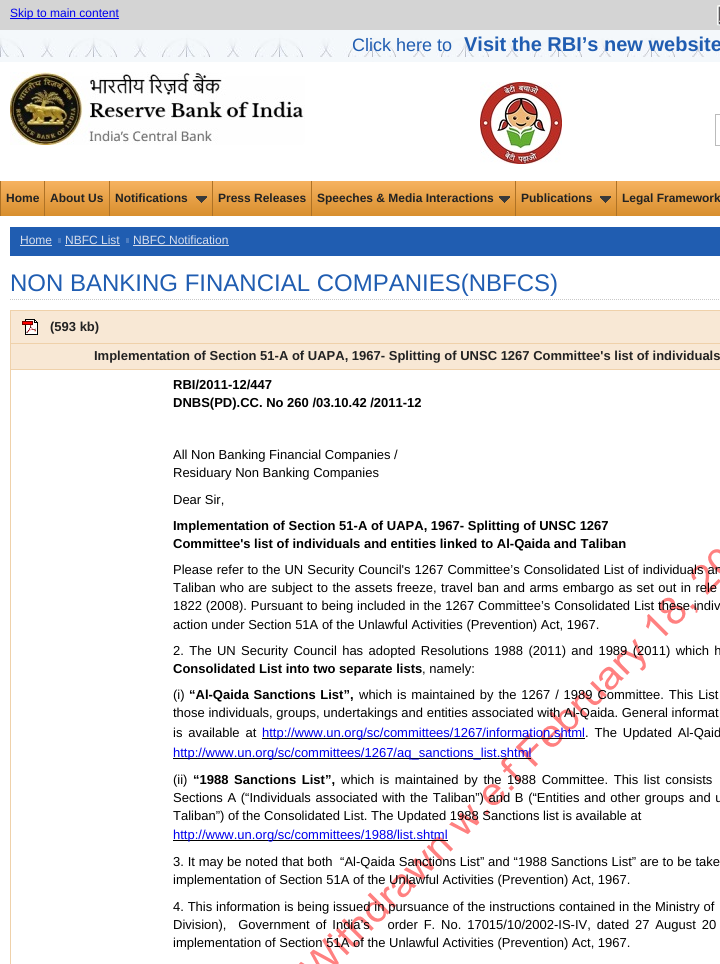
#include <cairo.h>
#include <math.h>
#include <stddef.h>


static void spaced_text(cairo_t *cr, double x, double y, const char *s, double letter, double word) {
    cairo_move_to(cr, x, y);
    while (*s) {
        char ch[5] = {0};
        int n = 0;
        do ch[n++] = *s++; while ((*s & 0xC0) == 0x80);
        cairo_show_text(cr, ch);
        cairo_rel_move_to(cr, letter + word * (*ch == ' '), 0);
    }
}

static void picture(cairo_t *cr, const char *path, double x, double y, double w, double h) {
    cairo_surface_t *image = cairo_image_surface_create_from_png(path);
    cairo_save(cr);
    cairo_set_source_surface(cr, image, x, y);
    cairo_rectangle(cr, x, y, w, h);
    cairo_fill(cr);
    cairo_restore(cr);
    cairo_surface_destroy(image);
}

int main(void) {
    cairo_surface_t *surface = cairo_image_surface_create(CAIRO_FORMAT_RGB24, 720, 964);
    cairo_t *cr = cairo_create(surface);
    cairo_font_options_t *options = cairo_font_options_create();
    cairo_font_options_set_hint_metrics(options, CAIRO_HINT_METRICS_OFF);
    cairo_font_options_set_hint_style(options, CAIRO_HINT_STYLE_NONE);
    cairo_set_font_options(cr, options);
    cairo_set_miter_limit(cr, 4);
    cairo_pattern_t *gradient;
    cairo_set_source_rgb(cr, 1, 1, 1);
    cairo_paint(cr);
    cairo_set_source_rgb(cr, 0.831, 0.831, 0.831);
    cairo_rectangle(cr, 0, 0, 720, 30);
    cairo_fill(cr);
    cairo_set_source_rgb(cr, 0, 0, 0.933);
    cairo_rectangle(cr, 10, 18, 109, 1);
    cairo_fill(cr);
    cairo_select_font_face(cr, "Liberation Sans", CAIRO_FONT_SLANT_NORMAL, CAIRO_FONT_WEIGHT_NORMAL);
    cairo_set_font_size(cr, 12);
    cairo_move_to(cr, 10, 17);
    cairo_show_text(cr, "Skip to main content");
    picture(cr, "img1.png", 717, 5, 3, 21);
    picture(cr, "img2.png", 0, 30, 720, 32);
    cairo_set_font_size(cr, 18);
    cairo_set_source_rgb(cr, 0.125, 0.365, 0.694);
    cairo_move_to(cr, 352, 51);
    cairo_show_text(cr, "Click here to");
    cairo_select_font_face(cr, "Liberation Sans", CAIRO_FONT_SLANT_NORMAL, CAIRO_FONT_WEIGHT_BOLD);
    cairo_set_font_size(cr, 20);
    cairo_move_to(cr, 464, 51);
    cairo_show_text(cr, "Visit the RBI’s new website");
    picture(cr, "img3.png", 10, 72, 295, 73);
    picture(cr, "img4.png", 480, 82, 82, 82);
    cairo_rectangle(cr, 715.5, 114.5, 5, 31);
    cairo_set_source_rgb(cr, 0.733, 0.733, 0.733);
    cairo_set_line_width(cr, 1);
    cairo_stroke(cr);
    gradient = cairo_pattern_create_linear(540, 181, 540, 216);
    cairo_pattern_add_color_stop_rgba(gradient, 0, 0.965, 0.702, 0.38, 1);
    cairo_pattern_add_color_stop_rgba(gradient, 1, 0.847, 0.557, 0.176, 1);
    cairo_set_source(cr, gradient);
    cairo_pattern_destroy(gradient);
    cairo_rectangle(cr, 1, 181, 719, 35);
    cairo_fill(cr);
    cairo_set_source_rgb(cr, 0.682, 0.447, 0.149);
    cairo_rectangle(cr, 0, 181, 1, 35);
    cairo_fill(cr);
    cairo_set_font_size(cr, 12);
    cairo_set_source_rgb(cr, 0.133, 0.133, 0.133);
    cairo_move_to(cr, 6, 202);
    cairo_show_text(cr, "Home");
    cairo_set_source_rgb(cr, 0.682, 0.447, 0.149);
    cairo_rectangle(cr, 44, 181, 1, 35);
    cairo_fill(cr);
    cairo_set_source_rgb(cr, 0.133, 0.133, 0.133);
    cairo_move_to(cr, 50, 202);
    cairo_show_text(cr, "About Us");
    cairo_set_source_rgb(cr, 0.682, 0.447, 0.149);
    cairo_rectangle(cr, 109, 181, 1, 35);
    cairo_fill(cr);
    cairo_set_source_rgb(cr, 0.133, 0.133, 0.133);
    cairo_move_to(cr, 115, 202);
    cairo_show_text(cr, "Notifications");
    picture(cr, "img5.png", 196, 196, 11, 7);
    cairo_set_source_rgb(cr, 0.682, 0.447, 0.149);
    cairo_rectangle(cr, 212, 181, 1, 35);
    cairo_fill(cr);
    cairo_set_source_rgb(cr, 0.133, 0.133, 0.133);
    cairo_move_to(cr, 218, 202);
    cairo_show_text(cr, "Press Releases");
    cairo_set_source_rgb(cr, 0.682, 0.447, 0.149);
    cairo_rectangle(cr, 311, 181, 1, 35);
    cairo_fill(cr);
    cairo_set_source_rgb(cr, 0.133, 0.133, 0.133);
    cairo_move_to(cr, 317, 202);
    cairo_show_text(cr, "Speeches & Media Interactions");
    picture(cr, "img5.png", 499, 196, 11, 7);
    cairo_set_source_rgb(cr, 0.682, 0.447, 0.149);
    cairo_rectangle(cr, 515, 181, 1, 35);
    cairo_fill(cr);
    cairo_set_source_rgb(cr, 0.133, 0.133, 0.133);
    cairo_move_to(cr, 521, 202);
    cairo_show_text(cr, "Publications");
    picture(cr, "img5.png", 600, 196, 11, 7);
    cairo_set_source_rgb(cr, 0.682, 0.447, 0.149);
    cairo_rectangle(cr, 616, 181, 1, 35);
    cairo_fill(cr);
    cairo_set_source_rgb(cr, 0.133, 0.133, 0.133);
    cairo_move_to(cr, 622, 202);
    cairo_show_text(cr, "Legal Framework");
    cairo_set_source_rgb(cr, 0.125, 0.365, 0.694);
    cairo_rectangle(cr, 10, 227, 710, 29);
    cairo_fill(cr);
    cairo_select_font_face(cr, "Liberation Sans", CAIRO_FONT_SLANT_NORMAL, CAIRO_FONT_WEIGHT_NORMAL);
    cairo_set_source_rgb(cr, 0.843, 0.871, 0.929);
    cairo_move_to(cr, 20, 244);
    cairo_show_text(cr, "Home");
    cairo_set_source_rgb(cr, 0.302, 0.49, 0.757);
    cairo_rectangle(cr, 58, 238, 3, 5);
    cairo_fill(cr);
    cairo_set_source_rgb(cr, 0.843, 0.871, 0.929);
    cairo_rectangle(cr, 20, 245, 32, 1);
    cairo_fill(cr);
    cairo_move_to(cr, 65, 244);
    cairo_show_text(cr, "NBFC List");
    cairo_set_source_rgb(cr, 0.302, 0.49, 0.757);
    cairo_rectangle(cr, 126, 238, 3, 5);
    cairo_fill(cr);
    cairo_set_source_rgb(cr, 0.843, 0.871, 0.929);
    cairo_rectangle(cr, 65, 245, 55, 1);
    cairo_fill(cr);
    cairo_move_to(cr, 133, 244);
    cairo_show_text(cr, "NBFC Notification");
    cairo_rectangle(cr, 133, 245, 96, 1);
    cairo_fill(cr);
    cairo_new_path(cr);
    cairo_move_to(cr, 10, 299.5);
    cairo_line_to(cr, 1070, 299.5);
    cairo_set_source_rgb(cr, 0.788, 0.788, 0.788);
    cairo_set_dash(cr, (double[]){1, 1}, 2, 0);
    cairo_stroke(cr);
    cairo_set_font_size(cr, 24);
    cairo_set_source_rgb(cr, 0.125, 0.365, 0.694);
    cairo_move_to(cr, 10, 291);
    cairo_show_text(cr, "NON BANKING FINANCIAL COMPANIES(NBFCS)");
    cairo_set_source_rgb(cr, 0.969, 0.91, 0.835);
    cairo_rectangle(cr, 11, 311, 709, 32);
    cairo_fill(cr);
    cairo_set_source_rgb(cr, 0.937, 0.82, 0.667);
    cairo_rectangle(cr, 10, 310, 710, 1);
    cairo_fill(cr);
    cairo_rectangle(cr, 10, 343, 710, 1);
    cairo_fill(cr);
    cairo_rectangle(cr, 10, 369, 710, 1);
    cairo_fill(cr);
    cairo_rectangle(cr, 10, 369, 1, 595);
    cairo_fill(cr);
    cairo_rectangle(cr, 10, 343, 1, 27);
    cairo_fill(cr);
    cairo_rectangle(cr, 10, 310, 1, 34);
    cairo_fill(cr);
    picture(cr, "img6.png", 22, 319, 16, 16);
    cairo_select_font_face(cr, "Liberation Sans", CAIRO_FONT_SLANT_NORMAL, CAIRO_FONT_WEIGHT_BOLD);
    cairo_set_font_size(cr, 13);
    cairo_set_source_rgb(cr, 0.133, 0.133, 0.133);
    cairo_move_to(cr, 50, 331);
    cairo_show_text(cr, "(593 kb)");
    cairo_set_source_rgb(cr, 0.969, 0.91, 0.835);
    cairo_rectangle(cr, 11, 344, 709, 25);
    cairo_fill(cr);
    cairo_set_source_rgb(cr, 0.133, 0.133, 0.133);
    cairo_move_to(cr, 94, 360);
    cairo_show_text(cr, "Implementation of Section 51-A of UAPA, 1967- Splitting of UNSC 1267 Committee's list of individuals");
    picture(cr, "img7.png", 299, 549, 421, 415);
    cairo_set_source_rgb(cr, 0, 0, 0);
    cairo_move_to(cr, 173, 389);
    cairo_show_text(cr, "RBI/2011-12/447");
    cairo_move_to(cr, 173, 407);
    cairo_show_text(cr, "DNBS(PD).CC. No 260 /03.10.42 /2011-12");
    cairo_select_font_face(cr, "Liberation Sans", CAIRO_FONT_SLANT_NORMAL, CAIRO_FONT_WEIGHT_NORMAL);
    cairo_move_to(cr, 173, 459);
    cairo_show_text(cr, "All Non Banking Financial Companies /");
    cairo_move_to(cr, 173, 477);
    cairo_show_text(cr, "Residuary Non Banking Companies");
    cairo_move_to(cr, 173, 504);
    cairo_show_text(cr, "Dear Sir,");
    cairo_select_font_face(cr, "Liberation Sans", CAIRO_FONT_SLANT_NORMAL, CAIRO_FONT_WEIGHT_BOLD);
    cairo_move_to(cr, 173, 530);
    cairo_show_text(cr, "Implementation of Section 51-A of UAPA, 1967- Splitting of UNSC 1267");
    cairo_move_to(cr, 173, 548);
    cairo_show_text(cr, "Committee's list of individuals and entities linked to Al-Qaida and Taliban");
    cairo_select_font_face(cr, "Liberation Sans", CAIRO_FONT_SLANT_NORMAL, CAIRO_FONT_WEIGHT_NORMAL);
    spaced_text(cr, 173, 574, "Please refer to the UN Security Council's 1267 Committee’s Consolidated List of individuals an", 0, 0.4);
    spaced_text(cr, 173, 592, "Taliban who are subject to the assets freeze, travel ban and arms embargo as set out in rele", 0, 0.8);
    spaced_text(cr, 173, 610, "1822 (2008). Pursuant to being included in the 1267 Committee’s Consolidated List these indiv", 0, 0.25);
    cairo_move_to(cr, 173, 629);
    cairo_show_text(cr, "action under Section 51A of the Unlawful Activities (Prevention) Act, 1967.");
    spaced_text(cr, 173, 655, "2. The UN Security Council has adopted Resolutions 1988 (2011) and 1989 (2011) which h", 0, 1.75);
    cairo_select_font_face(cr, "Liberation Sans", CAIRO_FONT_SLANT_NORMAL, CAIRO_FONT_WEIGHT_BOLD);
    cairo_move_to(cr, 173, 673);
    cairo_show_text(cr, "Consolidated List into two separate lists");
    cairo_select_font_face(cr, "Liberation Sans", CAIRO_FONT_SLANT_NORMAL, CAIRO_FONT_WEIGHT_NORMAL);
    cairo_move_to(cr, 422, 673);
    cairo_show_text(cr, ", namely:");
    cairo_move_to(cr, 173, 699);
    cairo_show_text(cr, "(i)");
    cairo_select_font_face(cr, "Liberation Sans", CAIRO_FONT_SLANT_NORMAL, CAIRO_FONT_WEIGHT_BOLD);
    spaced_text(cr, 189, 699, "“Al-Qaida Sanctions List”,", 0, 1);
    cairo_select_font_face(cr, "Liberation Sans", CAIRO_FONT_SLANT_NORMAL, CAIRO_FONT_WEIGHT_NORMAL);
    spaced_text(cr, 359, 699, "which is maintained by the 1267 / 1989 Committee. This List", 0, 1.25);
    cairo_move_to(cr, 173, 717);
    cairo_show_text(cr, "those individuals, groups, undertakings and entities associated with Al-Qaida. General informat");
    spaced_text(cr, 173, 737, "is available at", 0, 2.25);
    cairo_rectangle(cr, 262, 738, 323, 1);
    cairo_fill(cr);
    cairo_set_source_rgb(cr, 0, 0, 0.933);
    cairo_move_to(cr, 262, 737);
    cairo_show_text(cr, "http://www.un.org/sc/committees/1267/information.shtml");
    cairo_set_source_rgb(cr, 0, 0, 0);
    spaced_text(cr, 585, 737, ". The Updated Al-Qaid", 0, 2.25);
    cairo_rectangle(cr, 173, 758, 358, 1);
    cairo_fill(cr);
    cairo_set_source_rgb(cr, 0, 0, 0.933);
    cairo_move_to(cr, 173, 757);
    cairo_show_text(cr, "http://www.un.org/sc/committees/1267/aq_sanctions_list.shtml");
    cairo_set_source_rgb(cr, 0, 0, 0);
    cairo_move_to(cr, 173, 784);
    cairo_show_text(cr, "(ii)");
    cairo_select_font_face(cr, "Liberation Sans", CAIRO_FONT_SLANT_NORMAL, CAIRO_FONT_WEIGHT_BOLD);
    spaced_text(cr, 193, 784, "“1988 Sanctions List”,", 0, 2);
    cairo_select_font_face(cr, "Liberation Sans", CAIRO_FONT_SLANT_NORMAL, CAIRO_FONT_WEIGHT_NORMAL);
    spaced_text(cr, 341, 784, "which is maintained by the 1988 Committee. This list consists", 0, 2);
    spaced_text(cr, 173, 802, "Sections A (“Individuals associated with the Taliban”) and B (“Entities and other groups and u", 0, 1);
    cairo_move_to(cr, 173, 820);
    cairo_show_text(cr, "Taliban”) of the Consolidated List. The Updated 1988 Sanctions list is available at");
    cairo_rectangle(cr, 173, 840, 275, 1);
    cairo_fill(cr);
    cairo_set_source_rgb(cr, 0, 0, 0.933);
    cairo_move_to(cr, 173, 839);
    cairo_show_text(cr, "http://www.un.org/sc/committees/1988/list.shtml");
    cairo_set_source_rgb(cr, 0, 0, 0);
    spaced_text(cr, 173, 866, "3. It may be noted that both  “Al-Qaida Sanctions List” and “1988 Sanctions List” are to be take", 0, 0.2);
    cairo_move_to(cr, 173, 884);
    cairo_show_text(cr, "implementation of Section 51A of the Unlawful Activities (Prevention) Act, 1967.");
    spaced_text(cr, 173, 911, "4. This information is being issued in pursuance of the instructions contained in the Ministry of", 0, 0.2);
    spaced_text(cr, 173, 929, "Division),  Government of India’s   order F. No. 17015/10/2002-IS-IV, dated 27 August 20", 0, 2.25);
    cairo_move_to(cr, 173, 947);
    cairo_show_text(cr, "implementation of Section 51A of the Unlawful Activities (Prevention) Act, 1967.");
    cairo_surface_write_to_png(surface, "page.png");
    cairo_font_options_destroy(options);
    cairo_destroy(cr);
    cairo_surface_destroy(surface);
    return 0;
}
